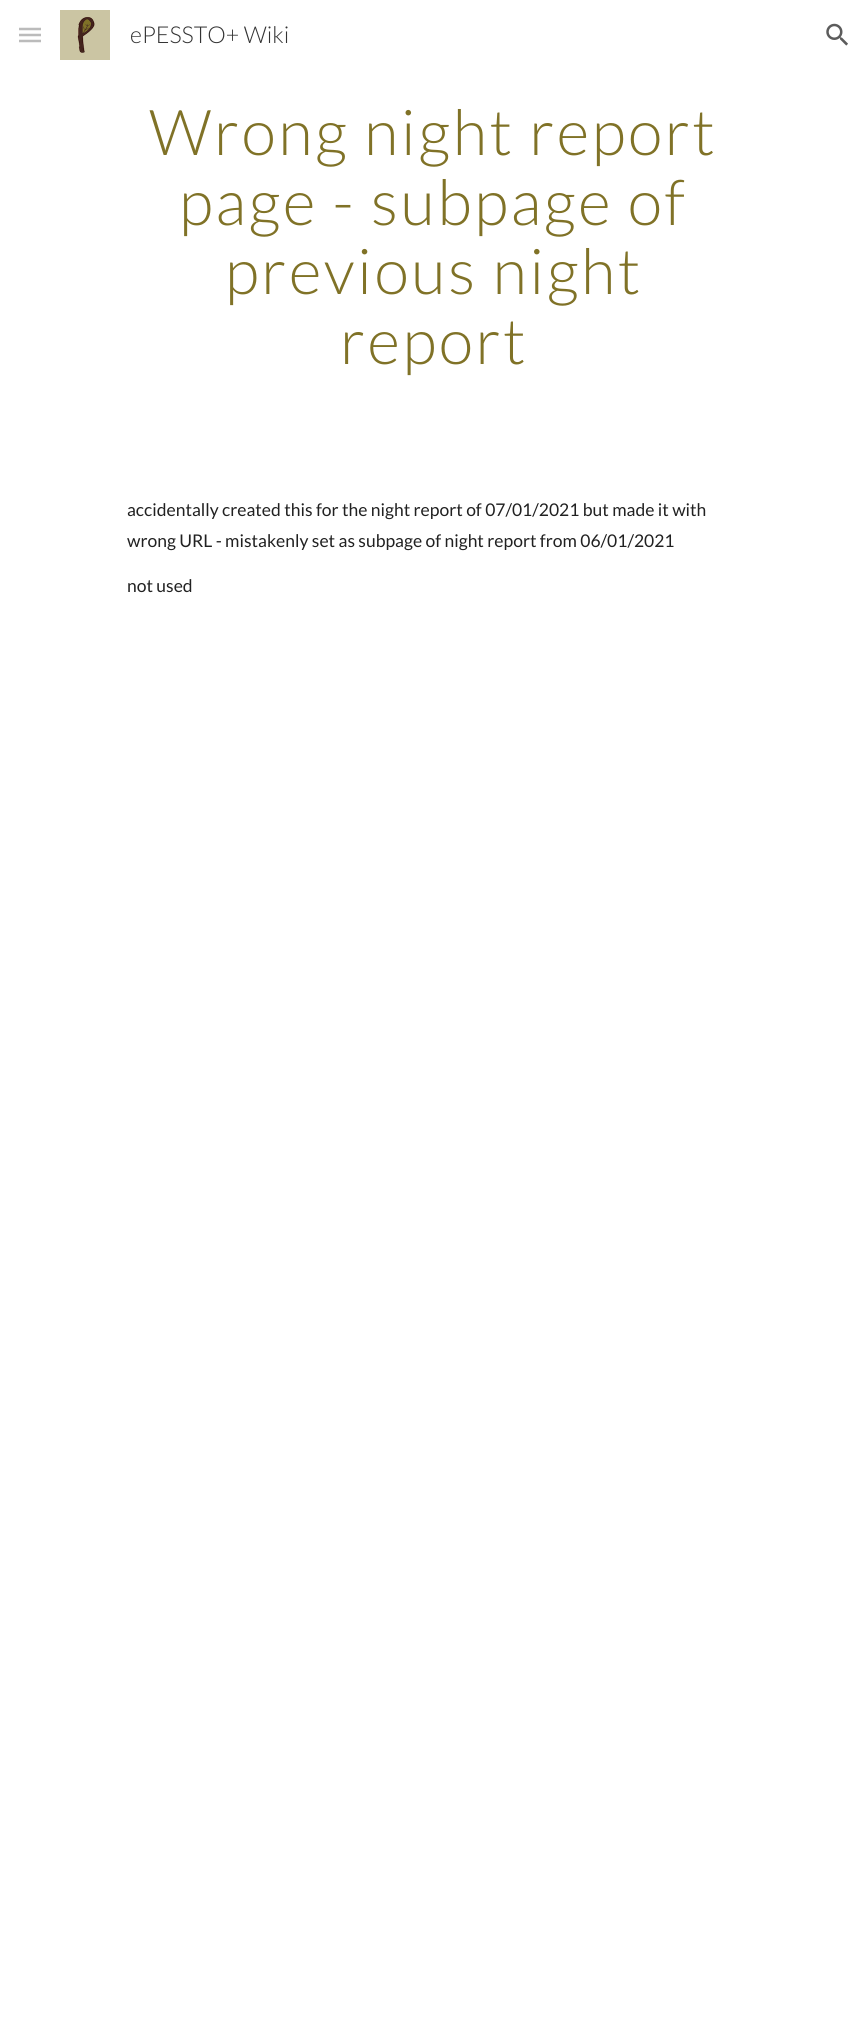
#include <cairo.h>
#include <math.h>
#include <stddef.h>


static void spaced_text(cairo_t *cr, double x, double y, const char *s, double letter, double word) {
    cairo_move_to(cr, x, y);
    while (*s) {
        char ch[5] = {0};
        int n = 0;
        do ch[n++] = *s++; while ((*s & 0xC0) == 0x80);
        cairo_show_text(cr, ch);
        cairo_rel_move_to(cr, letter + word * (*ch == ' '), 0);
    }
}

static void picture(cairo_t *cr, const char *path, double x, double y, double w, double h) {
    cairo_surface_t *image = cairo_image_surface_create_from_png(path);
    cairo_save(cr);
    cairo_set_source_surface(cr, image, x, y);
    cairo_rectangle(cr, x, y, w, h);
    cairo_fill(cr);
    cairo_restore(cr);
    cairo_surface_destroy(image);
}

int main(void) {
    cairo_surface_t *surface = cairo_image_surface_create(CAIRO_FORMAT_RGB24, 867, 2017);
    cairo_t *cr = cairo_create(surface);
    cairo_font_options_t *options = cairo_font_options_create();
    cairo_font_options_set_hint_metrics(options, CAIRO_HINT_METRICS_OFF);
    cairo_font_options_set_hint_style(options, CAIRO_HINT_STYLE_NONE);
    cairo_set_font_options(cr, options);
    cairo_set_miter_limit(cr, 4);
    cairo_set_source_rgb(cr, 1, 1, 1);
    cairo_paint(cr);
    cairo_new_path(cr);
    cairo_move_to(cr, 19, 29);
    cairo_line_to(cr, 41, 29);
    cairo_move_to(cr, 19, 35);
    cairo_line_to(cr, 41, 35);
    cairo_move_to(cr, 19, 41);
    cairo_line_to(cr, 41, 41);
    cairo_set_source_rgb(cr, 0.733, 0.733, 0.733);
    cairo_set_line_width(cr, 2.5);
    cairo_stroke(cr);
    picture(cr, "img1.png", 60, 10, 50, 50);
    cairo_select_font_face(cr, "Lato Light", CAIRO_FONT_SLANT_NORMAL, CAIRO_FONT_WEIGHT_NORMAL);
    cairo_set_font_size(cr, 23.25);
    cairo_set_source_rgb(cr, 0.2, 0.2, 0.2);
    cairo_move_to(cr, 130, 43);
    cairo_show_text(cr, "ePESSTO+ Wiki");
    picture(cr, "img2.png", 826, 23, 22, 23);
    cairo_set_font_size(cr, 63.25);
    cairo_set_source_rgb(cr, 0.502, 0.447, 0.153);
    spaced_text(cr, 149, 155, "Wrong night report", 2.5, 0);
    spaced_text(cr, 179, 225, "page - subpage of", 2.5, 0);
    spaced_text(cr, 225, 294, "previous night", 2.5, 0);
    spaced_text(cr, 340, 364, "report", 2.5, 0);
    cairo_select_font_face(cr, "Lato", CAIRO_FONT_SLANT_NORMAL, CAIRO_FONT_WEIGHT_NORMAL);
    cairo_set_font_size(cr, 17.5);
    cairo_set_source_rgb(cr, 0.129, 0.129, 0.129);
    cairo_move_to(cr, 127, 516);
    cairo_show_text(cr, "accidentally created this for the night report of 07/01/2021 but made it with");
    cairo_move_to(cr, 127, 547);
    cairo_show_text(cr, "wrong URL - mistakenly set as subpage of night report from 06/01/2021");
    cairo_move_to(cr, 127, 592);
    cairo_show_text(cr, "not used");
    cairo_surface_write_to_png(surface, "page.png");
    cairo_font_options_destroy(options);
    cairo_destroy(cr);
    cairo_surface_destroy(surface);
    return 0;
}
